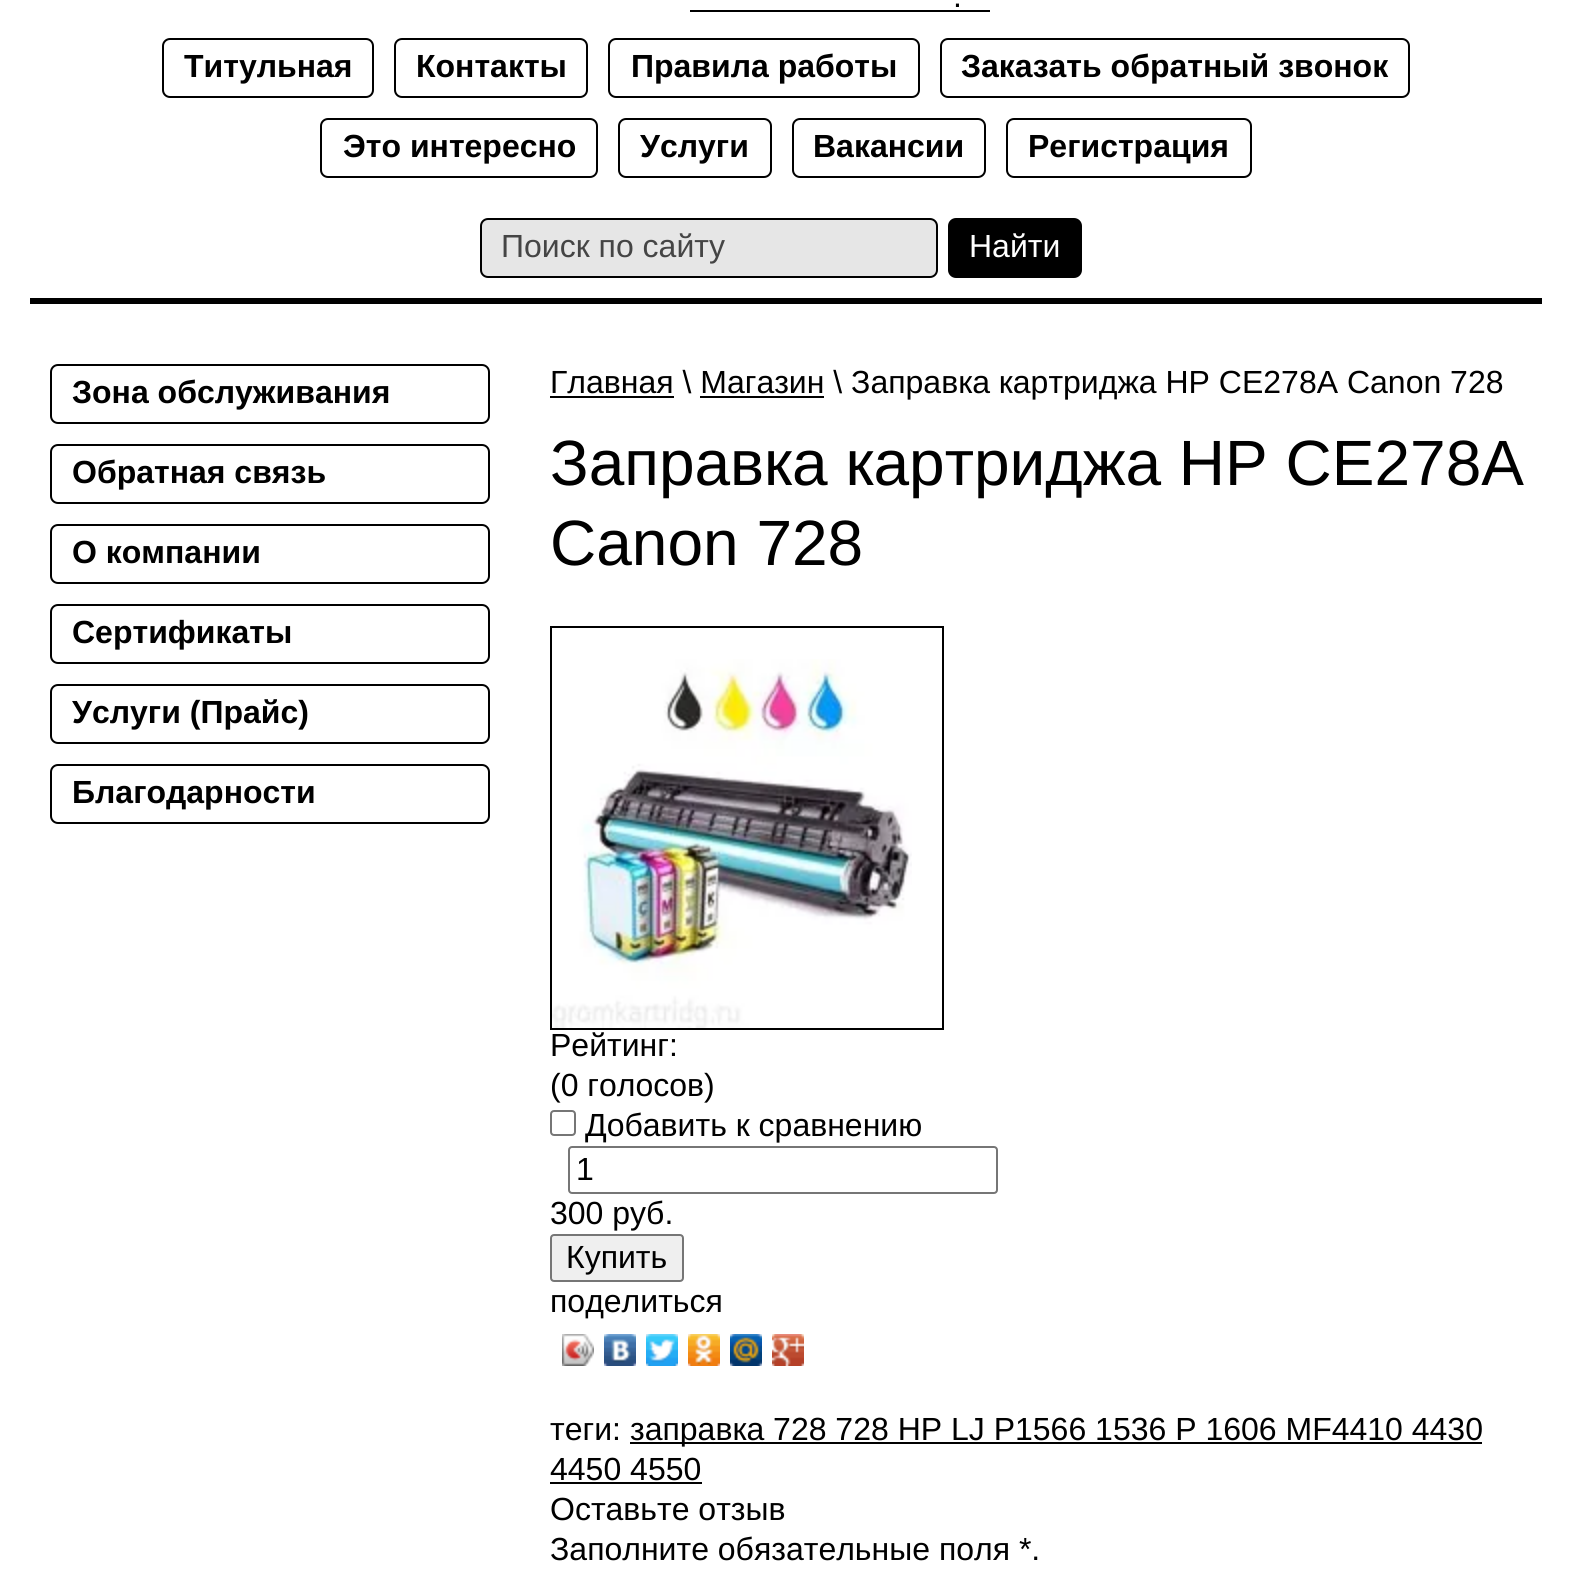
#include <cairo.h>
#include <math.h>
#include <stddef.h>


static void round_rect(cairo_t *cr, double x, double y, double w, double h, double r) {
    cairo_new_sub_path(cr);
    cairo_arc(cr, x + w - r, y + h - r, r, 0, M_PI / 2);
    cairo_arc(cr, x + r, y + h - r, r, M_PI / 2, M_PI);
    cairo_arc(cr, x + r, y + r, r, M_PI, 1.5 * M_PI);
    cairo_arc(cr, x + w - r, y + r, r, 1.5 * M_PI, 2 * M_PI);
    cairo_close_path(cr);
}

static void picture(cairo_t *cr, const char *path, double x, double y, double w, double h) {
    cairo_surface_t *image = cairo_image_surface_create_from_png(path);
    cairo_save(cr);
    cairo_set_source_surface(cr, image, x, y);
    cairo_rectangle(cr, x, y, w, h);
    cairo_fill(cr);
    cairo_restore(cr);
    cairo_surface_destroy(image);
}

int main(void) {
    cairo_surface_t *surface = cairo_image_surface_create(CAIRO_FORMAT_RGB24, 1571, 1573);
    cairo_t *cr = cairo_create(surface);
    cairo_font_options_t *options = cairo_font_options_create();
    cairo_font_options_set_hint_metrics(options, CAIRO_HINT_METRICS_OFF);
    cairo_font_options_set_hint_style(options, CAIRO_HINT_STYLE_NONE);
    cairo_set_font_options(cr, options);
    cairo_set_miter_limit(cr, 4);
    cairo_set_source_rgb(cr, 1, 1, 1);
    cairo_paint(cr);
    cairo_set_source_rgb(cr, 0, 0, 0);
    cairo_rectangle(cr, 30, 298, 1512, 6);
    cairo_fill(cr);
    cairo_select_font_face(cr, "Liberation Sans", CAIRO_FONT_SLANT_NORMAL, CAIRO_FONT_WEIGHT_NORMAL);
    cairo_set_font_size(cr, 32);
    cairo_move_to(cr, 953, 7);
    cairo_show_text(cr, ".");
    cairo_rectangle(cr, 690, 10, 300, 2);
    cairo_fill(cr);
    round_rect(cr, 163, 39, 210, 58, 7);
    cairo_stroke(cr);
    cairo_select_font_face(cr, "Liberation Sans", CAIRO_FONT_SLANT_NORMAL, CAIRO_FONT_WEIGHT_BOLD);
    cairo_move_to(cr, 184, 77);
    cairo_show_text(cr, "Титульная");
    round_rect(cr, 395, 39, 192, 58, 7);
    cairo_stroke(cr);
    cairo_move_to(cr, 416, 77);
    cairo_show_text(cr, "Контакты");
    round_rect(cr, 609, 39, 310, 58, 7);
    cairo_stroke(cr);
    cairo_move_to(cr, 631, 77);
    cairo_show_text(cr, "Правила работы");
    round_rect(cr, 941, 39, 468, 58, 7);
    cairo_stroke(cr);
    cairo_move_to(cr, 961, 77);
    cairo_show_text(cr, "Заказать обратный звонок");
    round_rect(cr, 321, 119, 276, 58, 7);
    cairo_stroke(cr);
    cairo_move_to(cr, 343, 157);
    cairo_show_text(cr, "Это интересно");
    round_rect(cr, 619, 119, 152, 58, 7);
    cairo_stroke(cr);
    cairo_move_to(cr, 640, 157);
    cairo_show_text(cr, "Услуги");
    round_rect(cr, 793, 119, 192, 58, 7);
    cairo_stroke(cr);
    cairo_move_to(cr, 813, 157);
    cairo_show_text(cr, "Вакансии");
    round_rect(cr, 1007, 119, 244, 58, 7);
    cairo_stroke(cr);
    cairo_move_to(cr, 1028, 157);
    cairo_show_text(cr, "Регистрация");
    cairo_set_source_rgb(cr, 0.902, 0.902, 0.902);
    round_rect(cr, 481, 219, 456, 58, 7);
    cairo_fill_preserve(cr);
    cairo_set_source_rgb(cr, 0, 0, 0);
    cairo_stroke(cr);
    cairo_select_font_face(cr, "Liberation Sans", CAIRO_FONT_SLANT_NORMAL, CAIRO_FONT_WEIGHT_NORMAL);
    cairo_set_source_rgb(cr, 0.271, 0.271, 0.271);
    cairo_move_to(cr, 501, 257);
    cairo_show_text(cr, "Поиск по сайту");
    cairo_set_source_rgb(cr, 0, 0, 0);
    round_rect(cr, 949, 219, 132, 58, 7);
    cairo_fill_preserve(cr);
    cairo_stroke(cr);
    cairo_set_source_rgb(cr, 1, 1, 1);
    cairo_move_to(cr, 969, 257);
    cairo_show_text(cr, "Найти");
    round_rect(cr, 51, 365, 438, 58, 7);
    cairo_set_source_rgb(cr, 0, 0, 0);
    cairo_stroke(cr);
    cairo_select_font_face(cr, "Liberation Sans", CAIRO_FONT_SLANT_NORMAL, CAIRO_FONT_WEIGHT_BOLD);
    cairo_move_to(cr, 72, 403);
    cairo_show_text(cr, "Зона обслуживания");
    round_rect(cr, 51, 445, 438, 58, 7);
    cairo_stroke(cr);
    cairo_move_to(cr, 72, 483);
    cairo_show_text(cr, "Обратная связь");
    round_rect(cr, 51, 525, 438, 58, 7);
    cairo_stroke(cr);
    cairo_move_to(cr, 72, 563);
    cairo_show_text(cr, "О компании");
    round_rect(cr, 51, 605, 438, 58, 7);
    cairo_stroke(cr);
    cairo_move_to(cr, 72, 643);
    cairo_show_text(cr, "Сертификаты");
    round_rect(cr, 51, 685, 438, 58, 7);
    cairo_stroke(cr);
    cairo_move_to(cr, 72, 723);
    cairo_show_text(cr, "Услуги (Прайс)");
    round_rect(cr, 51, 765, 438, 58, 7);
    cairo_stroke(cr);
    cairo_move_to(cr, 72, 803);
    cairo_show_text(cr, "Благодарности");
    cairo_rectangle(cr, 550, 396, 124, 2);
    cairo_fill(cr);
    cairo_select_font_face(cr, "Liberation Sans", CAIRO_FONT_SLANT_NORMAL, CAIRO_FONT_WEIGHT_NORMAL);
    cairo_move_to(cr, 550, 393);
    cairo_show_text(cr, "Главная \\ Магазин \\ Заправка картриджа HP CE278A Canon 728");
    cairo_rectangle(cr, 700, 396, 124, 2);
    cairo_fill(cr);
    cairo_set_font_size(cr, 64);
    cairo_move_to(cr, 550, 485);
    cairo_show_text(cr, "Заправка картриджа HP CE278A");
    cairo_move_to(cr, 550, 565);
    cairo_show_text(cr, "Canon 728");
    cairo_rectangle(cr, 551, 627, 392, 402);
    cairo_stroke(cr);
    picture(cr, "img1.png", 552, 659, 360, 369);
    cairo_set_font_size(cr, 32);
    cairo_move_to(cr, 550, 1056);
    cairo_show_text(cr, "Рейтинг:");
    cairo_move_to(cr, 550, 1096);
    cairo_show_text(cr, "(0 голосов)");
    round_rect(cr, 551, 1111, 24, 24, 3);
    cairo_set_source_rgb(cr, 0.463, 0.463, 0.463);
    cairo_stroke(cr);
    cairo_set_source_rgb(cr, 0, 0, 0);
    cairo_move_to(cr, 585, 1136);
    cairo_show_text(cr, "Добавить к сравнению");
    round_rect(cr, 569, 1147, 428, 46, 3);
    cairo_set_source_rgb(cr, 0.463, 0.463, 0.463);
    cairo_stroke(cr);
    cairo_set_source_rgb(cr, 0, 0, 0);
    cairo_move_to(cr, 576, 1180);
    cairo_show_text(cr, "1");
    cairo_move_to(cr, 550, 1224);
    cairo_show_text(cr, "300 руб.");
    cairo_set_source_rgb(cr, 0.937, 0.937, 0.937);
    round_rect(cr, 551, 1235, 132, 46, 3);
    cairo_fill_preserve(cr);
    cairo_set_source_rgb(cr, 0.463, 0.463, 0.463);
    cairo_stroke(cr);
    cairo_set_source_rgb(cr, 0, 0, 0);
    cairo_move_to(cr, 566, 1268);
    cairo_show_text(cr, "Купить");
    cairo_move_to(cr, 550, 1312);
    cairo_show_text(cr, "поделиться");
    picture(cr, "img2.png", 562, 1334, 32, 32);
    picture(cr, "img3.png", 562, 1334, 32, 32);
    picture(cr, "img4.png", 604, 1334, 32, 32);
    picture(cr, "img5.png", 646, 1334, 32, 32);
    picture(cr, "img6.png", 688, 1334, 32, 32);
    picture(cr, "img7.png", 730, 1334, 32, 32);
    picture(cr, "img8.png", 772, 1334, 32, 32);
    cairo_move_to(cr, 550, 1440);
    cairo_show_text(cr, "теги:");
    cairo_rectangle(cr, 630, 1442, 852, 2);
    cairo_fill(cr);
    cairo_move_to(cr, 630, 1440);
    cairo_show_text(cr, "заправка 728 728 HP LJ P1566 1536 P 1606 MF4410 4430");
    cairo_move_to(cr, 550, 1480);
    cairo_show_text(cr, "4450 4550");
    cairo_rectangle(cr, 550, 1482, 152, 2);
    cairo_fill(cr);
    cairo_move_to(cr, 550, 1520);
    cairo_show_text(cr, "Оставьте отзыв");
    cairo_move_to(cr, 550, 1560);
    cairo_show_text(cr, "Заполните обязательные поля *.");
    cairo_surface_write_to_png(surface, "page.png");
    cairo_font_options_destroy(options);
    cairo_destroy(cr);
    cairo_surface_destroy(surface);
    return 0;
}
